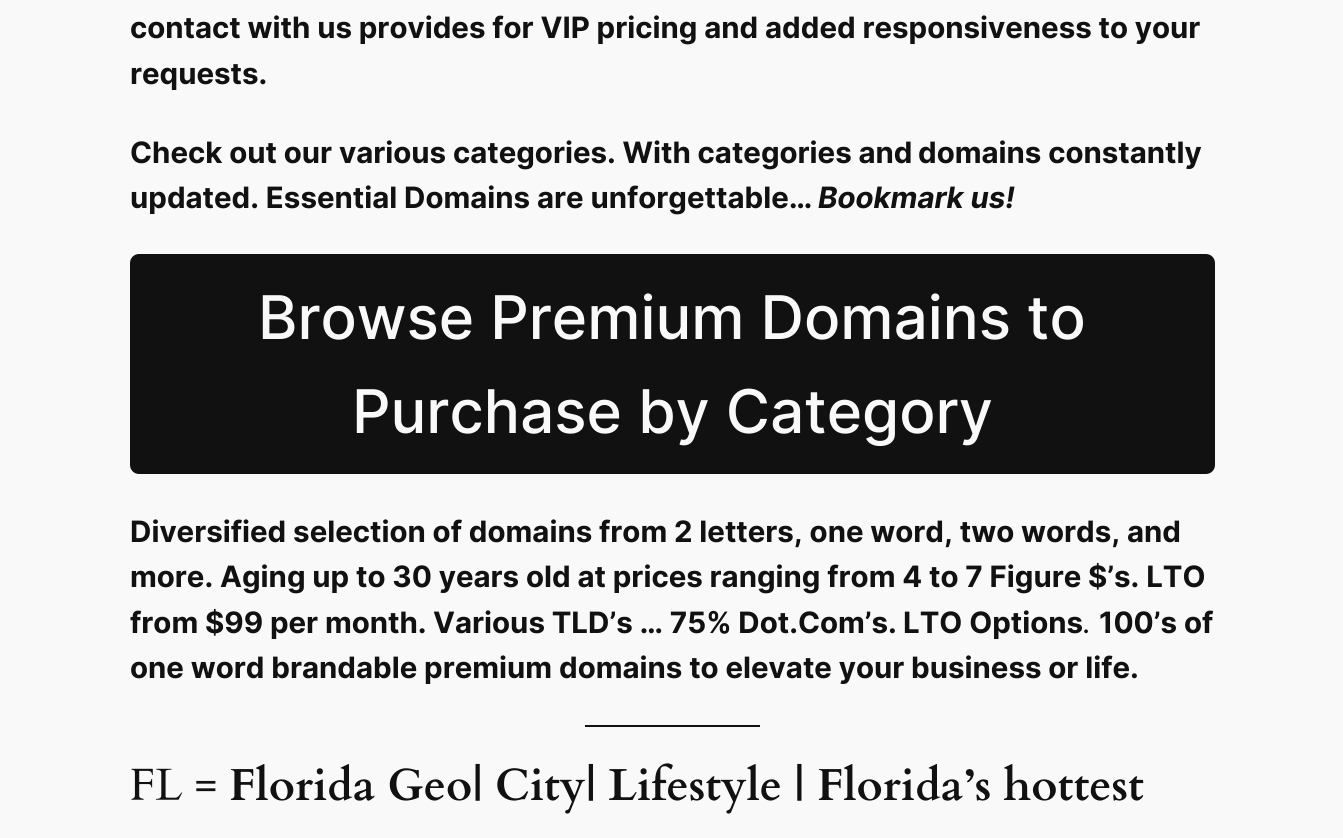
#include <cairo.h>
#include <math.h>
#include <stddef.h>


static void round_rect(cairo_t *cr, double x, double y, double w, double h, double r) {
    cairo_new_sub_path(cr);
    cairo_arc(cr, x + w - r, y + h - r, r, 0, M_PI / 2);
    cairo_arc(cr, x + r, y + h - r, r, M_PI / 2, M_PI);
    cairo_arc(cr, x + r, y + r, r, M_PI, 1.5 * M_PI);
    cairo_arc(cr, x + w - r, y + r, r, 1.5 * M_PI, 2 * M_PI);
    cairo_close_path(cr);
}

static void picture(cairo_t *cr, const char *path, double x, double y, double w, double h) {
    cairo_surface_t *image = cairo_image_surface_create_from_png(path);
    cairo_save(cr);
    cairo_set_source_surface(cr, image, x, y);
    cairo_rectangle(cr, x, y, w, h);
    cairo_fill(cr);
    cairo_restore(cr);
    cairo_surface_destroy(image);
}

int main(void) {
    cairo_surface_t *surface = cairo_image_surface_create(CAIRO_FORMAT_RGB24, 1343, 838);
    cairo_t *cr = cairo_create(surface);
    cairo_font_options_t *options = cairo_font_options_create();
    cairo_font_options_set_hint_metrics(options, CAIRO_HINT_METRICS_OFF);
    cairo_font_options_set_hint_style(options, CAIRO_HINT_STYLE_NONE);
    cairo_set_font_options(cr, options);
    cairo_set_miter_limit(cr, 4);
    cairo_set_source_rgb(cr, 0.976, 0.976, 0.976);
    cairo_paint(cr);
    cairo_select_font_face(cr, "Inter", CAIRO_FONT_SLANT_NORMAL, CAIRO_FONT_WEIGHT_BOLD);
    cairo_set_font_size(cr, 29.4);
    cairo_set_source_rgb(cr, 0.067, 0.067, 0.067);
    cairo_move_to(cr, 130, 38);
    cairo_show_text(cr, "contact with us provides for VIP pricing and added responsiveness to your");
    cairo_move_to(cr, 130, 84);
    cairo_show_text(cr, "requests.");
    cairo_move_to(cr, 130, 163);
    cairo_show_text(cr, "Check out our various categories. With categories and");
    cairo_move_to(cr, 918, 163);
    cairo_show_text(cr, "domains constantly");
    cairo_move_to(cr, 130, 208);
    cairo_show_text(cr, "updated. Essential Domains are unforgettable…");
    cairo_select_font_face(cr, "Inter", CAIRO_FONT_SLANT_ITALIC, CAIRO_FONT_WEIGHT_BOLD);
    cairo_move_to(cr, 818, 208);
    cairo_show_text(cr, "Bookmark us!");
    round_rect(cr, 130, 254, 1085, 220, 9);
    cairo_fill(cr);
    cairo_select_font_face(cr, "Inter Medium", CAIRO_FONT_SLANT_NORMAL, CAIRO_FONT_WEIGHT_NORMAL);
    cairo_set_font_size(cr, 60.25);
    cairo_set_source_rgb(cr, 0.976, 0.976, 0.976);
    cairo_move_to(cr, 258, 339);
    cairo_show_text(cr, "Browse Premium Domains to");
    cairo_move_to(cr, 352, 433);
    cairo_show_text(cr, "Purchase by Category");
    cairo_select_font_face(cr, "Inter", CAIRO_FONT_SLANT_NORMAL, CAIRO_FONT_WEIGHT_BOLD);
    cairo_set_font_size(cr, 29.4);
    cairo_set_source_rgb(cr, 0.067, 0.067, 0.067);
    cairo_move_to(cr, 130, 542);
    cairo_show_text(cr, "Diversified selection of domains from 2 letters, one word, two words, and");
    cairo_move_to(cr, 130, 587);
    cairo_show_text(cr, "more. Aging up to 30 years old at prices ranging from 4 to 7 Figure $’s. LTO");
    cairo_move_to(cr, 130, 633);
    cairo_show_text(cr, "from $99 per month.");
    cairo_move_to(cr, 433, 633);
    cairo_show_text(cr, "Various TLD’s … 75% Dot.Com’s.");
    cairo_move_to(cr, 903, 633);
    cairo_show_text(cr, "LTO Options");
    cairo_select_font_face(cr, "Inter", CAIRO_FONT_SLANT_NORMAL, CAIRO_FONT_WEIGHT_NORMAL);
    cairo_move_to(cr, 1082, 633);
    cairo_show_text(cr, ".");
    cairo_select_font_face(cr, "Inter", CAIRO_FONT_SLANT_NORMAL, CAIRO_FONT_WEIGHT_BOLD);
    cairo_move_to(cr, 1099, 633);
    cairo_show_text(cr, "100’s of");
    cairo_move_to(cr, 130, 678);
    cairo_show_text(cr, "one word brandable premium domains to elevate your business or life.");
    cairo_rectangle(cr, 585, 725, 175, 2);
    cairo_fill(cr);
    picture(cr, "img1.png", 131, 768, 85, 32);
    cairo_select_font_face(cr, "Cardo", CAIRO_FONT_SLANT_NORMAL, CAIRO_FONT_WEIGHT_BOLD);
    cairo_set_font_size(cr, 44.9);
    cairo_move_to(cr, 229, 800);
    cairo_show_text(cr, "Florida Geo| City| Lifestyle | Florida’s hottest");
    cairo_surface_write_to_png(surface, "page.png");
    cairo_font_options_destroy(options);
    cairo_destroy(cr);
    cairo_surface_destroy(surface);
    return 0;
}
